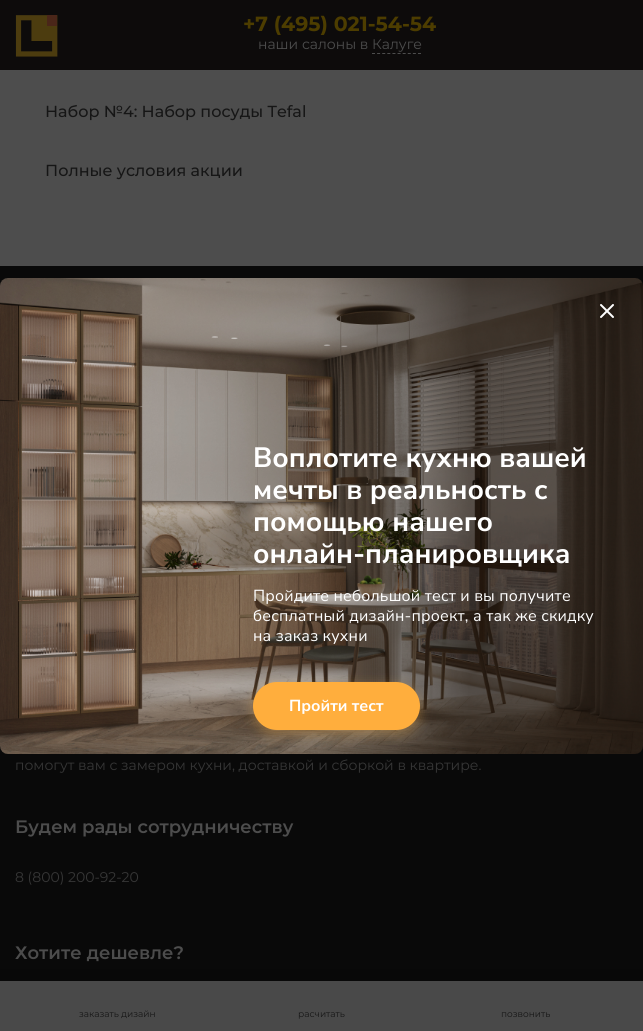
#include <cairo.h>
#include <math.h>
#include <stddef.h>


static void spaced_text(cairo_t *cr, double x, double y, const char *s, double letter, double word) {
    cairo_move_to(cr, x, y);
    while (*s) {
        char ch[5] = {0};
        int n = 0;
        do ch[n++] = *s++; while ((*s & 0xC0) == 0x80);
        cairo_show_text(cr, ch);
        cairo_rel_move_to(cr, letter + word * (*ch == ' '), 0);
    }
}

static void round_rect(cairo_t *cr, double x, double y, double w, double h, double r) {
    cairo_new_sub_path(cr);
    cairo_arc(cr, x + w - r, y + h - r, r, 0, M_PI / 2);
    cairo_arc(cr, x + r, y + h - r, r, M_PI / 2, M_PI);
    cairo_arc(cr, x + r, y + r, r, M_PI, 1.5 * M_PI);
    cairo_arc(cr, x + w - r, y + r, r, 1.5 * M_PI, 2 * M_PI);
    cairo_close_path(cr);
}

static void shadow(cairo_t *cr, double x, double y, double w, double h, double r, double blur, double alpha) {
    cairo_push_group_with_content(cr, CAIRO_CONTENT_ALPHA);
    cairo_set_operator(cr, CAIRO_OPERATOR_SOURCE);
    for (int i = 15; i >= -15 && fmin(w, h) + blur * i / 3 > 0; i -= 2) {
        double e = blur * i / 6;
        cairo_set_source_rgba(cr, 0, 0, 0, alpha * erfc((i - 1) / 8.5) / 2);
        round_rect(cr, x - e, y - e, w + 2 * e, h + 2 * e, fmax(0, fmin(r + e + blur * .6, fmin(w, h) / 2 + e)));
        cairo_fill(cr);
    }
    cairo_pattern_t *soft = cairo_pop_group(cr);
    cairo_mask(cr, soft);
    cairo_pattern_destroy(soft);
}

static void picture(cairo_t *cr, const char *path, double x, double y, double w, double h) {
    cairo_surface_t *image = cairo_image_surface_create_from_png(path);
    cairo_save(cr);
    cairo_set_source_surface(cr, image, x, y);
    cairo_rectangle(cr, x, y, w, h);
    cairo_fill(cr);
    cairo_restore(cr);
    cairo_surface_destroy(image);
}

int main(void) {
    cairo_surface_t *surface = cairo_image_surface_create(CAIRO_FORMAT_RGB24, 643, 1031);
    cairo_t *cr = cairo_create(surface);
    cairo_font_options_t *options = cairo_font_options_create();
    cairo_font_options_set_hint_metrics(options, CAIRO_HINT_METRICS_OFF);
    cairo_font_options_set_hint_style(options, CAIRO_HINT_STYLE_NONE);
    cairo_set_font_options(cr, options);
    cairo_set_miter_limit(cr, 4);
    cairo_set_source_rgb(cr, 0.302, 0.302, 0.302);
    cairo_paint(cr);
    cairo_set_source_rgb(cr, 0.051, 0.043, 0.043);
    cairo_rectangle(cr, 0, 0, 643, 70);
    cairo_fill(cr);
    picture(cr, "img1.png", 15, 15, 43, 42);
    cairo_select_font_face(cr, "Montserrat", CAIRO_FONT_SLANT_NORMAL, CAIRO_FONT_WEIGHT_BOLD);
    cairo_set_font_size(cr, 20.5);
    cairo_set_source_rgb(cr, 0.302, 0.239, 0);
    cairo_move_to(cr, 243, 31);
    cairo_show_text(cr, "+7 (495) 021-54-54");
    cairo_select_font_face(cr, "Montserrat", CAIRO_FONT_SLANT_NORMAL, CAIRO_FONT_WEIGHT_NORMAL);
    cairo_set_font_size(cr, 14);
    cairo_set_source_rgb(cr, 0.302, 0.302, 0.302);
    cairo_move_to(cr, 258, 49);
    cairo_show_text(cr, "наши салоны в Калуге");
    cairo_new_path(cr);
    cairo_move_to(cr, 372, 53.5);
    cairo_line_to(cr, 421, 53.5);
    cairo_set_line_width(cr, 1);
    cairo_set_dash(cr, (double[]){3, 2.11}, 2, 0);
    cairo_stroke(cr);
    cairo_select_font_face(cr, "Montserrat Medium", CAIRO_FONT_SLANT_NORMAL, CAIRO_FONT_WEIGHT_NORMAL);
    cairo_set_font_size(cr, 16);
    cairo_set_source_rgb(cr, 0.086, 0.086, 0.086);
    cairo_move_to(cr, 45, 117);
    cairo_show_text(cr, "Набор №4: Набор посуды Tefal");
    cairo_move_to(cr, 45, 176);
    cairo_show_text(cr, "Полные условия акции");
    cairo_set_source_rgb(cr, 0.039, 0.039, 0.039);
    cairo_rectangle(cr, 0, 266, 643, 715);
    cairo_fill(cr);
    picture(cr, "img2.png", 0, 278, 643, 476);
    cairo_new_path(cr);
    cairo_move_to(cr, 601, 317);
    cairo_line_to(cr, 613, 305);
    cairo_move_to(cr, 601, 305);
    cairo_line_to(cr, 613, 317);
    cairo_set_source_rgb(cr, 1, 1, 1);
    cairo_set_line_width(cr, 2);
    cairo_set_line_cap(cr, CAIRO_LINE_CAP_ROUND);
    cairo_set_line_join(cr, CAIRO_LINE_JOIN_ROUND);
    cairo_set_dash(cr, NULL, 0, 0);
    cairo_stroke(cr);
    cairo_select_font_face(cr, "Nunito Sans", CAIRO_FONT_SLANT_NORMAL, CAIRO_FONT_WEIGHT_BOLD);
    cairo_set_font_size(cr, 28);
    cairo_move_to(cr, 253, 467);
    cairo_show_text(cr, "Воплотите кухню вашей");
    cairo_move_to(cr, 253, 499);
    cairo_show_text(cr, "мечты в реальность с");
    cairo_move_to(cr, 253, 531);
    cairo_show_text(cr, "помощью нашего");
    cairo_move_to(cr, 253, 563);
    cairo_show_text(cr, "онлайн-планировщика");
    cairo_select_font_face(cr, "Nunito Sans", CAIRO_FONT_SLANT_NORMAL, CAIRO_FONT_WEIGHT_NORMAL);
    cairo_set_font_size(cr, 16);
    spaced_text(cr, 253, 601, "Пройдите небольшой тест и вы получите", 0.2, 0);
    spaced_text(cr, 253, 621, "бесплатный дизайн-проект, а так же скидку", 0.2, 0);
    spaced_text(cr, 253, 641, "на заказ кухни", 0.2, 0);
    cairo_set_source_rgb(cr, 1, 0.729, 0.341);
    shadow(cr, 253, 686, 167, 48, 24, 6, 0.36);
    cairo_set_source_rgb(cr, 1, 0.682, 0.239);
    round_rect(cr, 253, 682, 167, 48, 24);
    cairo_fill(cr);
    cairo_select_font_face(cr, "Nunito Sans", CAIRO_FONT_SLANT_NORMAL, CAIRO_FONT_WEIGHT_BOLD);
    cairo_set_source_rgb(cr, 1, 1, 1);
    cairo_move_to(cr, 289, 711);
    cairo_show_text(cr, "Пройти тест");
    cairo_select_font_face(cr, "Montserrat", CAIRO_FONT_SLANT_NORMAL, CAIRO_FONT_WEIGHT_NORMAL);
    cairo_set_font_size(cr, 14);
    cairo_set_source_rgb(cr, 0.212, 0.212, 0.212);
    cairo_move_to(cr, 15, 770);
    cairo_show_text(cr, "помогут вам с замером кухни, доставкой и сборкой в квартире.");
    cairo_select_font_face(cr, "Montserrat SemiBold", CAIRO_FONT_SLANT_NORMAL, CAIRO_FONT_WEIGHT_NORMAL);
    cairo_set_font_size(cr, 18);
    cairo_set_source_rgb(cr, 0.302, 0.302, 0.302);
    cairo_move_to(cr, 15, 833);
    cairo_show_text(cr, "Будем рады сотрудничеству");
    cairo_select_font_face(cr, "Montserrat", CAIRO_FONT_SLANT_NORMAL, CAIRO_FONT_WEIGHT_NORMAL);
    cairo_set_font_size(cr, 14);
    cairo_set_source_rgb(cr, 0.212, 0.212, 0.212);
    cairo_move_to(cr, 15, 882);
    cairo_show_text(cr, "8 (800) 200-92-20");
    cairo_select_font_face(cr, "Montserrat SemiBold", CAIRO_FONT_SLANT_NORMAL, CAIRO_FONT_WEIGHT_NORMAL);
    cairo_set_font_size(cr, 18);
    cairo_set_source_rgb(cr, 0.302, 0.302, 0.302);
    cairo_move_to(cr, 15, 959);
    cairo_show_text(cr, "Хотите дешевле?");
    cairo_set_source_rgb(cr, 0, 0, 0);
    shadow(cr, -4, 976, 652, 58, 0, 14, 0.2);
    cairo_set_source_rgb(cr, 0.286, 0.286, 0.286);
    cairo_rectangle(cr, 0, 981, 643, 50);
    cairo_fill(cr);
    cairo_select_font_face(cr, "Montserrat", CAIRO_FONT_SLANT_NORMAL, CAIRO_FONT_WEIGHT_NORMAL);
    cairo_set_font_size(cr, 9);
    cairo_set_source_rgb(cr, 0.086, 0.086, 0.086);
    cairo_move_to(cr, 79, 1017);
    cairo_show_text(cr, "заказать дизайн");
    cairo_move_to(cr, 298, 1017);
    cairo_show_text(cr, "расчитать");
    cairo_move_to(cr, 501, 1017);
    cairo_show_text(cr, "позвонить");
    cairo_surface_write_to_png(surface, "page.png");
    cairo_font_options_destroy(options);
    cairo_destroy(cr);
    cairo_surface_destroy(surface);
    return 0;
}
